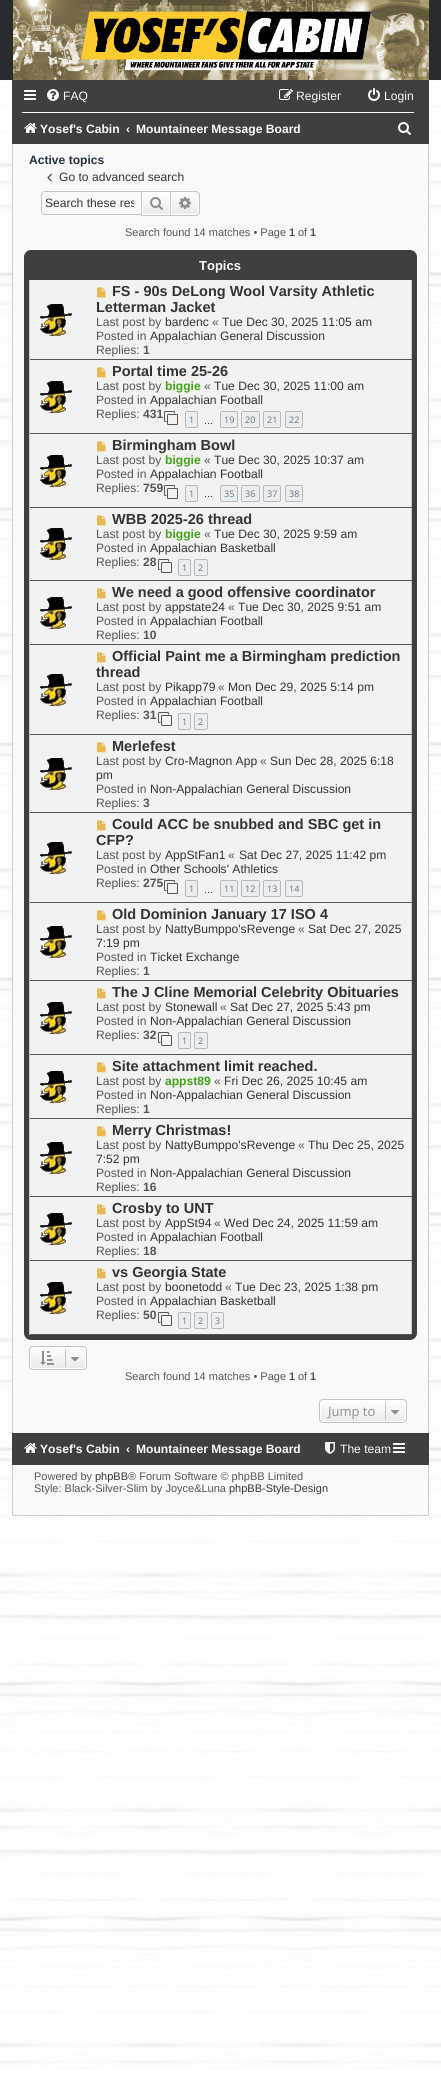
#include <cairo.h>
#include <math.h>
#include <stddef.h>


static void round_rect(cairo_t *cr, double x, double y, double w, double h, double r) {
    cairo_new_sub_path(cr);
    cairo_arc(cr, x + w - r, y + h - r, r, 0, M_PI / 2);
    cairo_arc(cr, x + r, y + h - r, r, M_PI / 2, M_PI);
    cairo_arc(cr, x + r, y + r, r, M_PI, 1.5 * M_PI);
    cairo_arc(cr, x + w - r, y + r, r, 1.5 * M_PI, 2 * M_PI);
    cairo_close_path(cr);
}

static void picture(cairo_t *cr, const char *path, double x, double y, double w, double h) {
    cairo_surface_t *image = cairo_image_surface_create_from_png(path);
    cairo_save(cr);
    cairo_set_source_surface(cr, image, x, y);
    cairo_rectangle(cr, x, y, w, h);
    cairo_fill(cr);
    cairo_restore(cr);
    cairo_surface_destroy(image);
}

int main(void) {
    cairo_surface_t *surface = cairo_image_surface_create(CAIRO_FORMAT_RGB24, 441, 2074);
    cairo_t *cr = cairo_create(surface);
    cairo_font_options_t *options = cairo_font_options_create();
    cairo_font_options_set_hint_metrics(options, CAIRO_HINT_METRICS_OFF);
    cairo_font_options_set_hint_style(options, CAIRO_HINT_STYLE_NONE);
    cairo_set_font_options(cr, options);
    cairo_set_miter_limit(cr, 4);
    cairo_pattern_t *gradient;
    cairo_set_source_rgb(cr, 1, 1, 1);
    cairo_paint(cr);
    picture(cr, "img1.png", 0, 80, 441, 1989);
    cairo_set_source_rgb(cr, 0.161, 0.173, 0.184);
    cairo_rectangle(cr, 0, 0, 441, 80);
    cairo_fill(cr);
    picture(cr, "img2.png", 13, 0, 416, 80);
    cairo_set_source_rgb(cr, 0.976, 0.976, 0.976);
    cairo_rectangle(cr, 13, 144, 415, 1371);
    cairo_fill(cr);
    cairo_rectangle(cr, 12.5, 80.5, 416, 1435);
    cairo_set_source_rgb(cr, 0.8, 0.8, 0.8);
    cairo_set_line_width(cr, 1);
    cairo_stroke(cr);
    cairo_set_source_rgb(cr, 0.247, 0.247, 0.247);
    cairo_rectangle(cr, 12, 80, 417, 64);
    cairo_fill(cr);
    picture(cr, "img3.png", 24, 90, 12, 10);
    picture(cr, "img4.png", 47, 89, 12, 12);
    cairo_select_font_face(cr, "Liberation Sans", CAIRO_FONT_SLANT_NORMAL, CAIRO_FONT_WEIGHT_NORMAL);
    cairo_set_font_size(cr, 12.1);
    cairo_set_source_rgb(cr, 0.98, 0.98, 0.98);
    cairo_move_to(cr, 63, 100);
    cairo_show_text(cr, "FAQ");
    picture(cr, "img5.png", 279, 89, 14, 11);
    cairo_move_to(cr, 296, 100);
    cairo_show_text(cr, "Register");
    picture(cr, "img6.png", 368, 88, 12, 13);
    cairo_move_to(cr, 384, 100);
    cairo_show_text(cr, "Login");
    cairo_set_source_rgb(cr, 1, 1, 1);
    cairo_rectangle(cr, 22, 112, 392, 1);
    cairo_fill(cr);
    picture(cr, "img7.png", 24, 123, 13, 10);
    cairo_select_font_face(cr, "Liberation Sans", CAIRO_FONT_SLANT_NORMAL, CAIRO_FONT_WEIGHT_BOLD);
    cairo_set_source_rgb(cr, 0.98, 0.98, 0.98);
    cairo_move_to(cr, 40, 133);
    cairo_show_text(cr, "Yosef's Cabin");
    cairo_move_to(cr, 126, 133);
    cairo_show_text(cr, "‹");
    cairo_move_to(cr, 136, 133);
    cairo_show_text(cr, "Mountaineer Message Board");
    picture(cr, "img8.png", 398, 122, 13, 13);
    cairo_set_source_rgb(cr, 0.157, 0.192, 0.247);
    cairo_move_to(cr, 29, 164);
    cairo_show_text(cr, "Active topics");
    picture(cr, "img9.png", 47, 173, 5, 9);
    cairo_select_font_face(cr, "Liberation Sans", CAIRO_FONT_SLANT_NORMAL, CAIRO_FONT_WEIGHT_NORMAL);
    cairo_set_source_rgb(cr, 0.2, 0.2, 0.2);
    cairo_move_to(cr, 59, 181);
    cairo_show_text(cr, "Go to advanced search");
    cairo_set_source_rgb(cr, 0.78, 0.765, 0.749);
    cairo_set_fill_rule(cr, CAIRO_FILL_RULE_EVEN_ODD);
    cairo_new_path(cr);
    cairo_move_to(cr, 45, 191);
    cairo_line_to(cr, 141, 191);
    cairo_line_to(cr, 141, 215);
    cairo_line_to(cr, 45, 215);
    cairo_curve_to(cr, 43, 215, 41, 213, 41, 211);
    cairo_line_to(cr, 41, 195);
    cairo_curve_to(cr, 41, 193, 43, 191, 45, 191);
    cairo_close_path(cr);
    cairo_move_to(cr, 45, 192);
    cairo_line_to(cr, 141, 192);
    cairo_line_to(cr, 141, 214);
    cairo_line_to(cr, 45, 214);
    cairo_curve_to(cr, 43, 214, 42, 213, 42, 211);
    cairo_line_to(cr, 42, 195);
    cairo_curve_to(cr, 42, 193, 43, 192, 45, 192);
    cairo_close_path(cr);
    cairo_fill(cr);
    cairo_save(cr);
    cairo_set_fill_rule(cr, CAIRO_FILL_RULE_WINDING);
    cairo_rectangle(cr, 45, 196, 89, 14);
    cairo_clip(cr);
    cairo_set_source_rgb(cr, 0.2, 0.2, 0.2);
    cairo_move_to(cr, 45, 207);
    cairo_show_text(cr, "Search these res");
    cairo_restore(cr);
    gradient = cairo_pattern_create_linear(156, 192, 156, 215);
    cairo_pattern_add_color_stop_rgba(gradient, 0, 1, 1, 1, 1);
    cairo_pattern_add_color_stop_rgba(gradient, 1, 0.914, 0.914, 0.914, 1);
    cairo_set_source(cr, gradient);
    cairo_pattern_destroy(gradient);
    cairo_rectangle(cr, 143, 193, 26, 21);
    cairo_fill(cr);
    cairo_rectangle(cr, 142.5, 192.5, 27, 22);
    cairo_set_source_rgb(cr, 1, 1, 1);
    cairo_stroke(cr);
    cairo_rectangle(cr, 141.5, 191.5, 29, 24);
    cairo_set_source_rgb(cr, 0.78, 0.765, 0.749);
    cairo_stroke(cr);
    picture(cr, "img10.png", 150, 197, 13, 13);
    gradient = cairo_pattern_create_linear(185, 192, 185, 215);
    cairo_pattern_add_color_stop_rgba(gradient, 0, 1, 1, 1, 1);
    cairo_pattern_add_color_stop_rgba(gradient, 1, 0.914, 0.914, 0.914, 1);
    cairo_set_source(cr, gradient);
    cairo_pattern_destroy(gradient);
    cairo_new_path(cr);
    cairo_move_to(cr, 171.5, 192.5);
    cairo_line_to(cr, 196, 192.5);
    cairo_curve_to(cr, 197.5, 192.5, 198.5, 193.5, 198.5, 195);
    cairo_line_to(cr, 198.5, 212);
    cairo_curve_to(cr, 198.5, 213.5, 197.5, 214.5, 196, 214.5);
    cairo_line_to(cr, 171.5, 214.5);
    cairo_close_path(cr);
    cairo_fill_preserve(cr);
    cairo_set_source_rgb(cr, 1, 1, 1);
    cairo_stroke(cr);
    cairo_set_source_rgb(cr, 0.78, 0.765, 0.749);
    cairo_new_path(cr);
    cairo_move_to(cr, 171, 191);
    cairo_line_to(cr, 196, 191);
    cairo_curve_to(cr, 198, 191, 200, 193, 200, 195);
    cairo_line_to(cr, 200, 212);
    cairo_curve_to(cr, 200, 214, 198, 216, 196, 216);
    cairo_line_to(cr, 171, 216);
    cairo_close_path(cr);
    cairo_move_to(cr, 171, 192);
    cairo_line_to(cr, 196, 192);
    cairo_curve_to(cr, 197.5, 192, 199, 193.5, 199, 195);
    cairo_line_to(cr, 199, 212);
    cairo_curve_to(cr, 199, 213.5, 197.5, 215, 196, 215);
    cairo_line_to(cr, 171, 215);
    cairo_close_path(cr);
    cairo_fill(cr);
    picture(cr, "img11.png", 179, 197, 12, 12);
    cairo_set_font_size(cr, 11);
    cairo_set_source_rgb(cr, 0.333, 0.333, 0.333);
    cairo_move_to(cr, 125, 236);
    cairo_show_text(cr, "Search found 14 matches • Page");
    cairo_select_font_face(cr, "Liberation Sans", CAIRO_FONT_SLANT_NORMAL, CAIRO_FONT_WEIGHT_BOLD);
    cairo_move_to(cr, 289, 236);
    cairo_show_text(cr, "1");
    cairo_select_font_face(cr, "Liberation Sans", CAIRO_FONT_SLANT_NORMAL, CAIRO_FONT_WEIGHT_NORMAL);
    cairo_move_to(cr, 298, 236);
    cairo_show_text(cr, "of");
    cairo_select_font_face(cr, "Liberation Sans", CAIRO_FONT_SLANT_NORMAL, CAIRO_FONT_WEIGHT_BOLD);
    cairo_move_to(cr, 310, 236);
    cairo_show_text(cr, "1");
    cairo_set_source_rgb(cr, 0.247, 0.247, 0.247);
    round_rect(cr, 24, 250, 393, 1090, 7);
    cairo_fill(cr);
    cairo_set_font_size(cr, 13);
    cairo_set_source_rgb(cr, 0.98, 0.98, 0.98);
    cairo_move_to(cr, 199, 270);
    cairo_show_text(cr, "Topics");
    cairo_set_source_rgb(cr, 0.949, 0.949, 0.949);
    cairo_rectangle(cr, 30, 280, 381, 79);
    cairo_fill(cr);
    cairo_set_source_rgb(cr, 0.8, 0.8, 0.8);
    cairo_rectangle(cr, 411, 280, 1, 1055);
    cairo_fill(cr);
    cairo_set_source_rgb(cr, 0.333, 0.333, 0.333);
    cairo_rectangle(cr, 29, 359, 383, 1);
    cairo_fill(cr);
    cairo_set_source_rgb(cr, 0.8, 0.8, 0.8);
    cairo_rectangle(cr, 29, 280, 1, 80);
    cairo_fill(cr);
    picture(cr, "img12.png", 40, 304, 32, 32);
    picture(cr, "img13.png", 97, 287, 9, 11);
    cairo_set_font_size(cr, 14.5);
    cairo_set_source_rgb(cr, 0.2, 0.2, 0.2);
    cairo_move_to(cr, 112, 296);
    cairo_show_text(cr, "FS - 90s DeLong Wool Varsity Athletic");
    cairo_move_to(cr, 96, 312);
    cairo_show_text(cr, "Letterman Jacket");
    cairo_select_font_face(cr, "Liberation Sans", CAIRO_FONT_SLANT_NORMAL, CAIRO_FONT_WEIGHT_NORMAL);
    cairo_set_font_size(cr, 12.1);
    cairo_set_source_rgb(cr, 0.333, 0.333, 0.333);
    cairo_move_to(cr, 96, 326);
    cairo_show_text(cr, "Last post by");
    cairo_set_source_rgb(cr, 0.2, 0.2, 0.2);
    cairo_move_to(cr, 165, 326);
    cairo_show_text(cr, "bardenc");
    cairo_set_source_rgb(cr, 0.333, 0.333, 0.333);
    cairo_move_to(cr, 212, 326);
    cairo_show_text(cr, "«");
    cairo_set_source_rgb(cr, 0.2, 0.2, 0.2);
    cairo_move_to(cr, 222, 326);
    cairo_show_text(cr, "Tue Dec 30, 2025 11:05 am");
    cairo_set_source_rgb(cr, 0.333, 0.333, 0.333);
    cairo_move_to(cr, 96, 340);
    cairo_show_text(cr, "Posted in");
    cairo_set_source_rgb(cr, 0.2, 0.2, 0.2);
    cairo_move_to(cr, 150, 340);
    cairo_show_text(cr, "Appalachian General Discussion");
    cairo_set_source_rgb(cr, 0.333, 0.333, 0.333);
    cairo_move_to(cr, 96, 354);
    cairo_show_text(cr, "Replies:");
    cairo_select_font_face(cr, "Liberation Sans", CAIRO_FONT_SLANT_NORMAL, CAIRO_FONT_WEIGHT_BOLD);
    cairo_move_to(cr, 143, 354);
    cairo_show_text(cr, "1");
    cairo_set_source_rgb(cr, 0.949, 0.949, 0.949);
    cairo_rectangle(cr, 30, 360, 381, 73);
    cairo_fill(cr);
    cairo_set_source_rgb(cr, 0.333, 0.333, 0.333);
    cairo_rectangle(cr, 29, 433, 383, 1);
    cairo_fill(cr);
    cairo_set_source_rgb(cr, 0.8, 0.8, 0.8);
    cairo_rectangle(cr, 29, 360, 1, 74);
    cairo_fill(cr);
    picture(cr, "img12.png", 40, 381, 32, 32);
    picture(cr, "img13.png", 97, 367, 9, 11);
    cairo_set_font_size(cr, 14.5);
    cairo_set_source_rgb(cr, 0.2, 0.2, 0.2);
    cairo_move_to(cr, 112, 376);
    cairo_show_text(cr, "Portal time 25-26");
    cairo_select_font_face(cr, "Liberation Sans", CAIRO_FONT_SLANT_NORMAL, CAIRO_FONT_WEIGHT_NORMAL);
    cairo_set_font_size(cr, 12.1);
    cairo_set_source_rgb(cr, 0.333, 0.333, 0.333);
    cairo_move_to(cr, 96, 390);
    cairo_show_text(cr, "Last post by");
    cairo_select_font_face(cr, "Liberation Sans", CAIRO_FONT_SLANT_NORMAL, CAIRO_FONT_WEIGHT_BOLD);
    cairo_set_source_rgb(cr, 0.255, 0.639, 0.09);
    cairo_move_to(cr, 165, 390);
    cairo_show_text(cr, "biggie");
    cairo_select_font_face(cr, "Liberation Sans", CAIRO_FONT_SLANT_NORMAL, CAIRO_FONT_WEIGHT_NORMAL);
    cairo_set_source_rgb(cr, 0.333, 0.333, 0.333);
    cairo_move_to(cr, 204, 390);
    cairo_show_text(cr, "«");
    cairo_set_source_rgb(cr, 0.2, 0.2, 0.2);
    cairo_move_to(cr, 214, 390);
    cairo_show_text(cr, "Tue Dec 30, 2025 11:00 am");
    cairo_set_source_rgb(cr, 0.333, 0.333, 0.333);
    cairo_move_to(cr, 96, 404);
    cairo_show_text(cr, "Posted in");
    cairo_set_source_rgb(cr, 0.2, 0.2, 0.2);
    cairo_move_to(cr, 150, 404);
    cairo_show_text(cr, "Appalachian Football");
    cairo_set_source_rgb(cr, 0.333, 0.333, 0.333);
    cairo_move_to(cr, 96, 418);
    cairo_show_text(cr, "Replies:");
    cairo_select_font_face(cr, "Liberation Sans", CAIRO_FONT_SLANT_NORMAL, CAIRO_FONT_WEIGHT_BOLD);
    cairo_move_to(cr, 143, 418);
    cairo_show_text(cr, "431");
    picture(cr, "img14.png", 164, 411, 14, 14);
    cairo_set_source_rgb(cr, 0.925, 0.929, 0.933);
    round_rect(cr, 185.5, 411.5, 12, 16, 1.5);
    cairo_fill_preserve(cr);
    cairo_set_source_rgb(cr, 0.706, 0.729, 0.753);
    cairo_stroke(cr);
    cairo_select_font_face(cr, "Open Sans", CAIRO_FONT_SLANT_NORMAL, CAIRO_FONT_WEIGHT_NORMAL);
    cairo_set_font_size(cr, 9);
    cairo_set_source_rgb(cr, 0.361, 0.459, 0.549);
    cairo_move_to(cr, 189, 423);
    cairo_show_text(cr, "1");
    cairo_set_source_rgb(cr, 0.925, 0.929, 0.933);
    round_rect(cr, 220.5, 411.5, 17, 16, 1.5);
    cairo_fill_preserve(cr);
    cairo_set_source_rgb(cr, 0.706, 0.729, 0.753);
    cairo_stroke(cr);
    cairo_set_source_rgb(cr, 0.361, 0.459, 0.549);
    cairo_move_to(cr, 224, 423);
    cairo_show_text(cr, "19");
    cairo_set_source_rgb(cr, 0.925, 0.929, 0.933);
    round_rect(cr, 241.5, 411.5, 18, 16, 1.5);
    cairo_fill_preserve(cr);
    cairo_set_source_rgb(cr, 0.706, 0.729, 0.753);
    cairo_stroke(cr);
    cairo_set_source_rgb(cr, 0.361, 0.459, 0.549);
    cairo_move_to(cr, 245, 423);
    cairo_show_text(cr, "20");
    cairo_set_source_rgb(cr, 0.925, 0.929, 0.933);
    round_rect(cr, 263.5, 411.5, 17, 16, 1.5);
    cairo_fill_preserve(cr);
    cairo_set_source_rgb(cr, 0.706, 0.729, 0.753);
    cairo_stroke(cr);
    cairo_set_source_rgb(cr, 0.361, 0.459, 0.549);
    cairo_move_to(cr, 267, 423);
    cairo_show_text(cr, "21");
    cairo_set_source_rgb(cr, 0.925, 0.929, 0.933);
    round_rect(cr, 285.5, 411.5, 17, 16, 1.5);
    cairo_fill_preserve(cr);
    cairo_set_source_rgb(cr, 0.706, 0.729, 0.753);
    cairo_stroke(cr);
    cairo_set_source_rgb(cr, 0.361, 0.459, 0.549);
    cairo_move_to(cr, 289, 423);
    cairo_show_text(cr, "22");
    cairo_select_font_face(cr, "Liberation Sans", CAIRO_FONT_SLANT_NORMAL, CAIRO_FONT_WEIGHT_NORMAL);
    cairo_set_source_rgb(cr, 0, 0, 0);
    cairo_move_to(cr, 204, 424);
    cairo_show_text(cr, "…");
    cairo_set_source_rgb(cr, 0.949, 0.949, 0.949);
    cairo_rectangle(cr, 30, 434, 381, 73);
    cairo_fill(cr);
    cairo_set_source_rgb(cr, 0.333, 0.333, 0.333);
    cairo_rectangle(cr, 29, 507, 383, 1);
    cairo_fill(cr);
    cairo_set_source_rgb(cr, 0.8, 0.8, 0.8);
    cairo_rectangle(cr, 29, 434, 1, 74);
    cairo_fill(cr);
    picture(cr, "img12.png", 40, 455, 32, 32);
    picture(cr, "img13.png", 97, 441, 9, 11);
    cairo_select_font_face(cr, "Liberation Sans", CAIRO_FONT_SLANT_NORMAL, CAIRO_FONT_WEIGHT_BOLD);
    cairo_set_font_size(cr, 14.5);
    cairo_set_source_rgb(cr, 0.2, 0.2, 0.2);
    cairo_move_to(cr, 112, 450);
    cairo_show_text(cr, "Birmingham Bowl");
    cairo_select_font_face(cr, "Liberation Sans", CAIRO_FONT_SLANT_NORMAL, CAIRO_FONT_WEIGHT_NORMAL);
    cairo_set_font_size(cr, 12.1);
    cairo_set_source_rgb(cr, 0.333, 0.333, 0.333);
    cairo_move_to(cr, 96, 464);
    cairo_show_text(cr, "Last post by");
    cairo_select_font_face(cr, "Liberation Sans", CAIRO_FONT_SLANT_NORMAL, CAIRO_FONT_WEIGHT_BOLD);
    cairo_set_source_rgb(cr, 0.255, 0.639, 0.09);
    cairo_move_to(cr, 165, 464);
    cairo_show_text(cr, "biggie");
    cairo_select_font_face(cr, "Liberation Sans", CAIRO_FONT_SLANT_NORMAL, CAIRO_FONT_WEIGHT_NORMAL);
    cairo_set_source_rgb(cr, 0.333, 0.333, 0.333);
    cairo_move_to(cr, 204, 464);
    cairo_show_text(cr, "«");
    cairo_set_source_rgb(cr, 0.2, 0.2, 0.2);
    cairo_move_to(cr, 214, 464);
    cairo_show_text(cr, "Tue Dec 30, 2025 10:37 am");
    cairo_set_source_rgb(cr, 0.333, 0.333, 0.333);
    cairo_move_to(cr, 96, 478);
    cairo_show_text(cr, "Posted in");
    cairo_set_source_rgb(cr, 0.2, 0.2, 0.2);
    cairo_move_to(cr, 150, 478);
    cairo_show_text(cr, "Appalachian Football");
    cairo_set_source_rgb(cr, 0.333, 0.333, 0.333);
    cairo_move_to(cr, 96, 492);
    cairo_show_text(cr, "Replies:");
    cairo_select_font_face(cr, "Liberation Sans", CAIRO_FONT_SLANT_NORMAL, CAIRO_FONT_WEIGHT_BOLD);
    cairo_move_to(cr, 143, 492);
    cairo_show_text(cr, "759");
    picture(cr, "img14.png", 164, 485, 14, 14);
    cairo_set_source_rgb(cr, 0.925, 0.929, 0.933);
    round_rect(cr, 185.5, 485.5, 12, 16, 1.5);
    cairo_fill_preserve(cr);
    cairo_set_source_rgb(cr, 0.706, 0.729, 0.753);
    cairo_stroke(cr);
    cairo_select_font_face(cr, "Open Sans", CAIRO_FONT_SLANT_NORMAL, CAIRO_FONT_WEIGHT_NORMAL);
    cairo_set_font_size(cr, 9);
    cairo_set_source_rgb(cr, 0.361, 0.459, 0.549);
    cairo_move_to(cr, 189, 497);
    cairo_show_text(cr, "1");
    cairo_select_font_face(cr, "Liberation Sans", CAIRO_FONT_SLANT_NORMAL, CAIRO_FONT_WEIGHT_NORMAL);
    cairo_set_source_rgb(cr, 0, 0, 0);
    cairo_move_to(cr, 204, 497);
    cairo_show_text(cr, "…");
    cairo_set_source_rgb(cr, 0.925, 0.929, 0.933);
    round_rect(cr, 220.5, 485.5, 17, 16, 1.5);
    cairo_fill_preserve(cr);
    cairo_set_source_rgb(cr, 0.706, 0.729, 0.753);
    cairo_stroke(cr);
    cairo_select_font_face(cr, "Open Sans", CAIRO_FONT_SLANT_NORMAL, CAIRO_FONT_WEIGHT_NORMAL);
    cairo_set_source_rgb(cr, 0.361, 0.459, 0.549);
    cairo_move_to(cr, 224, 497);
    cairo_show_text(cr, "35");
    cairo_set_source_rgb(cr, 0.925, 0.929, 0.933);
    round_rect(cr, 241.5, 485.5, 18, 16, 1.5);
    cairo_fill_preserve(cr);
    cairo_set_source_rgb(cr, 0.706, 0.729, 0.753);
    cairo_stroke(cr);
    cairo_set_source_rgb(cr, 0.361, 0.459, 0.549);
    cairo_move_to(cr, 245, 497);
    cairo_show_text(cr, "36");
    cairo_set_source_rgb(cr, 0.925, 0.929, 0.933);
    round_rect(cr, 263.5, 485.5, 17, 16, 1.5);
    cairo_fill_preserve(cr);
    cairo_set_source_rgb(cr, 0.706, 0.729, 0.753);
    cairo_stroke(cr);
    cairo_set_source_rgb(cr, 0.361, 0.459, 0.549);
    cairo_move_to(cr, 267, 497);
    cairo_show_text(cr, "37");
    cairo_set_source_rgb(cr, 0.925, 0.929, 0.933);
    round_rect(cr, 285.5, 485.5, 17, 16, 1.5);
    cairo_fill_preserve(cr);
    cairo_set_source_rgb(cr, 0.706, 0.729, 0.753);
    cairo_stroke(cr);
    cairo_set_source_rgb(cr, 0.361, 0.459, 0.549);
    cairo_move_to(cr, 289, 497);
    cairo_show_text(cr, "38");
    cairo_set_source_rgb(cr, 0.949, 0.949, 0.949);
    cairo_rectangle(cr, 30, 508, 381, 72);
    cairo_fill(cr);
    cairo_set_source_rgb(cr, 0.333, 0.333, 0.333);
    cairo_rectangle(cr, 29, 580, 383, 1);
    cairo_fill(cr);
    cairo_set_source_rgb(cr, 0.8, 0.8, 0.8);
    cairo_rectangle(cr, 29, 508, 1, 73);
    cairo_fill(cr);
    picture(cr, "img12.png", 40, 528, 32, 32);
    picture(cr, "img13.png", 97, 515, 9, 11);
    cairo_select_font_face(cr, "Liberation Sans", CAIRO_FONT_SLANT_NORMAL, CAIRO_FONT_WEIGHT_BOLD);
    cairo_set_font_size(cr, 14.5);
    cairo_set_source_rgb(cr, 0.2, 0.2, 0.2);
    cairo_move_to(cr, 112, 524);
    cairo_show_text(cr, "WBB 2025-26 thread");
    cairo_select_font_face(cr, "Liberation Sans", CAIRO_FONT_SLANT_NORMAL, CAIRO_FONT_WEIGHT_NORMAL);
    cairo_set_font_size(cr, 12.1);
    cairo_set_source_rgb(cr, 0.333, 0.333, 0.333);
    cairo_move_to(cr, 96, 538);
    cairo_show_text(cr, "Last post by");
    cairo_select_font_face(cr, "Liberation Sans", CAIRO_FONT_SLANT_NORMAL, CAIRO_FONT_WEIGHT_BOLD);
    cairo_set_source_rgb(cr, 0.255, 0.639, 0.09);
    cairo_move_to(cr, 165, 538);
    cairo_show_text(cr, "biggie");
    cairo_select_font_face(cr, "Liberation Sans", CAIRO_FONT_SLANT_NORMAL, CAIRO_FONT_WEIGHT_NORMAL);
    cairo_set_source_rgb(cr, 0.333, 0.333, 0.333);
    cairo_move_to(cr, 204, 538);
    cairo_show_text(cr, "«");
    cairo_set_source_rgb(cr, 0.2, 0.2, 0.2);
    cairo_move_to(cr, 214, 538);
    cairo_show_text(cr, "Tue Dec 30, 2025 9:59 am");
    cairo_set_source_rgb(cr, 0.333, 0.333, 0.333);
    cairo_move_to(cr, 96, 552);
    cairo_show_text(cr, "Posted in");
    cairo_set_source_rgb(cr, 0.2, 0.2, 0.2);
    cairo_move_to(cr, 150, 552);
    cairo_show_text(cr, "Appalachian Basketball");
    cairo_set_source_rgb(cr, 0.333, 0.333, 0.333);
    cairo_move_to(cr, 96, 566);
    cairo_show_text(cr, "Replies:");
    cairo_select_font_face(cr, "Liberation Sans", CAIRO_FONT_SLANT_NORMAL, CAIRO_FONT_WEIGHT_BOLD);
    cairo_move_to(cr, 143, 566);
    cairo_show_text(cr, "28");
    picture(cr, "img14.png", 158, 559, 14, 14);
    cairo_set_source_rgb(cr, 0.925, 0.929, 0.933);
    round_rect(cr, 178.5, 559.5, 12, 16, 1.5);
    cairo_fill_preserve(cr);
    cairo_set_source_rgb(cr, 0.706, 0.729, 0.753);
    cairo_stroke(cr);
    cairo_select_font_face(cr, "Open Sans", CAIRO_FONT_SLANT_NORMAL, CAIRO_FONT_WEIGHT_NORMAL);
    cairo_set_font_size(cr, 9);
    cairo_set_source_rgb(cr, 0.361, 0.459, 0.549);
    cairo_move_to(cr, 182, 571);
    cairo_show_text(cr, "1");
    cairo_set_source_rgb(cr, 0.925, 0.929, 0.933);
    round_rect(cr, 194.5, 559.5, 13, 16, 1.5);
    cairo_fill_preserve(cr);
    cairo_set_source_rgb(cr, 0.706, 0.729, 0.753);
    cairo_stroke(cr);
    cairo_set_source_rgb(cr, 0.361, 0.459, 0.549);
    cairo_move_to(cr, 198, 571);
    cairo_show_text(cr, "2");
    cairo_set_source_rgb(cr, 0.949, 0.949, 0.949);
    cairo_rectangle(cr, 30, 581, 381, 63);
    cairo_fill(cr);
    cairo_set_source_rgb(cr, 0.333, 0.333, 0.333);
    cairo_rectangle(cr, 29, 644, 383, 1);
    cairo_fill(cr);
    cairo_set_source_rgb(cr, 0.8, 0.8, 0.8);
    cairo_rectangle(cr, 29, 581, 1, 64);
    cairo_fill(cr);
    picture(cr, "img12.png", 40, 597, 32, 32);
    picture(cr, "img13.png", 97, 588, 9, 11);
    cairo_select_font_face(cr, "Liberation Sans", CAIRO_FONT_SLANT_NORMAL, CAIRO_FONT_WEIGHT_BOLD);
    cairo_set_font_size(cr, 14.5);
    cairo_set_source_rgb(cr, 0.2, 0.2, 0.2);
    cairo_move_to(cr, 112, 597);
    cairo_show_text(cr, "We need a good offensive coordinator");
    cairo_select_font_face(cr, "Liberation Sans", CAIRO_FONT_SLANT_NORMAL, CAIRO_FONT_WEIGHT_NORMAL);
    cairo_set_font_size(cr, 12.1);
    cairo_set_source_rgb(cr, 0.333, 0.333, 0.333);
    cairo_move_to(cr, 96, 611);
    cairo_show_text(cr, "Last post by");
    cairo_set_source_rgb(cr, 0.2, 0.2, 0.2);
    cairo_move_to(cr, 165, 611);
    cairo_show_text(cr, "appstate24");
    cairo_set_source_rgb(cr, 0.333, 0.333, 0.333);
    cairo_move_to(cr, 228, 611);
    cairo_show_text(cr, "«");
    cairo_set_source_rgb(cr, 0.2, 0.2, 0.2);
    cairo_move_to(cr, 238, 611);
    cairo_show_text(cr, "Tue Dec 30, 2025 9:51 am");
    cairo_set_source_rgb(cr, 0.333, 0.333, 0.333);
    cairo_move_to(cr, 96, 625);
    cairo_show_text(cr, "Posted in");
    cairo_set_source_rgb(cr, 0.2, 0.2, 0.2);
    cairo_move_to(cr, 150, 625);
    cairo_show_text(cr, "Appalachian Football");
    cairo_set_source_rgb(cr, 0.333, 0.333, 0.333);
    cairo_move_to(cr, 96, 639);
    cairo_show_text(cr, "Replies:");
    cairo_select_font_face(cr, "Liberation Sans", CAIRO_FONT_SLANT_NORMAL, CAIRO_FONT_WEIGHT_BOLD);
    cairo_move_to(cr, 143, 639);
    cairo_show_text(cr, "10");
    cairo_set_source_rgb(cr, 0.949, 0.949, 0.949);
    cairo_rectangle(cr, 30, 645, 381, 89);
    cairo_fill(cr);
    cairo_set_source_rgb(cr, 0.333, 0.333, 0.333);
    cairo_rectangle(cr, 29, 734, 383, 1);
    cairo_fill(cr);
    cairo_set_source_rgb(cr, 0.8, 0.8, 0.8);
    cairo_rectangle(cr, 29, 645, 1, 90);
    cairo_fill(cr);
    picture(cr, "img12.png", 40, 674, 32, 32);
    picture(cr, "img13.png", 97, 652, 9, 11);
    cairo_set_font_size(cr, 14.5);
    cairo_set_source_rgb(cr, 0.2, 0.2, 0.2);
    cairo_move_to(cr, 112, 661);
    cairo_show_text(cr, "Official Paint me a Birmingham prediction");
    cairo_move_to(cr, 96, 677);
    cairo_show_text(cr, "thread");
    cairo_select_font_face(cr, "Liberation Sans", CAIRO_FONT_SLANT_NORMAL, CAIRO_FONT_WEIGHT_NORMAL);
    cairo_set_font_size(cr, 12.1);
    cairo_set_source_rgb(cr, 0.333, 0.333, 0.333);
    cairo_move_to(cr, 96, 691);
    cairo_show_text(cr, "Last post by");
    cairo_set_source_rgb(cr, 0.2, 0.2, 0.2);
    cairo_move_to(cr, 165, 691);
    cairo_show_text(cr, "Pikapp79");
    cairo_set_source_rgb(cr, 0.333, 0.333, 0.333);
    cairo_move_to(cr, 218, 691);
    cairo_show_text(cr, "«");
    cairo_set_source_rgb(cr, 0.2, 0.2, 0.2);
    cairo_move_to(cr, 228, 691);
    cairo_show_text(cr, "Mon Dec 29, 2025 5:14 pm");
    cairo_set_source_rgb(cr, 0.333, 0.333, 0.333);
    cairo_move_to(cr, 96, 705);
    cairo_show_text(cr, "Posted in");
    cairo_set_source_rgb(cr, 0.2, 0.2, 0.2);
    cairo_move_to(cr, 150, 705);
    cairo_show_text(cr, "Appalachian Football");
    cairo_set_source_rgb(cr, 0.333, 0.333, 0.333);
    cairo_move_to(cr, 96, 719);
    cairo_show_text(cr, "Replies:");
    cairo_select_font_face(cr, "Liberation Sans", CAIRO_FONT_SLANT_NORMAL, CAIRO_FONT_WEIGHT_BOLD);
    cairo_move_to(cr, 143, 719);
    cairo_show_text(cr, "31");
    picture(cr, "img14.png", 158, 712, 14, 14);
    cairo_set_source_rgb(cr, 0.925, 0.929, 0.933);
    round_rect(cr, 178.5, 713.5, 12, 16, 1.5);
    cairo_fill_preserve(cr);
    cairo_set_source_rgb(cr, 0.706, 0.729, 0.753);
    cairo_stroke(cr);
    cairo_select_font_face(cr, "Open Sans", CAIRO_FONT_SLANT_NORMAL, CAIRO_FONT_WEIGHT_NORMAL);
    cairo_set_font_size(cr, 9);
    cairo_set_source_rgb(cr, 0.361, 0.459, 0.549);
    cairo_move_to(cr, 182, 725);
    cairo_show_text(cr, "1");
    cairo_set_source_rgb(cr, 0.925, 0.929, 0.933);
    round_rect(cr, 194.5, 713.5, 13, 16, 1.5);
    cairo_fill_preserve(cr);
    cairo_set_source_rgb(cr, 0.706, 0.729, 0.753);
    cairo_stroke(cr);
    cairo_set_source_rgb(cr, 0.361, 0.459, 0.549);
    cairo_move_to(cr, 198, 725);
    cairo_show_text(cr, "2");
    cairo_set_source_rgb(cr, 0.949, 0.949, 0.949);
    cairo_rectangle(cr, 30, 735, 381, 77);
    cairo_fill(cr);
    cairo_set_source_rgb(cr, 0.333, 0.333, 0.333);
    cairo_rectangle(cr, 29, 812, 383, 1);
    cairo_fill(cr);
    cairo_set_source_rgb(cr, 0.8, 0.8, 0.8);
    cairo_rectangle(cr, 29, 735, 1, 78);
    cairo_fill(cr);
    picture(cr, "img12.png", 40, 758, 32, 32);
    picture(cr, "img13.png", 97, 742, 9, 11);
    cairo_select_font_face(cr, "Liberation Sans", CAIRO_FONT_SLANT_NORMAL, CAIRO_FONT_WEIGHT_BOLD);
    cairo_set_font_size(cr, 14.5);
    cairo_set_source_rgb(cr, 0.2, 0.2, 0.2);
    cairo_move_to(cr, 112, 751);
    cairo_show_text(cr, "Merlefest");
    cairo_select_font_face(cr, "Liberation Sans", CAIRO_FONT_SLANT_NORMAL, CAIRO_FONT_WEIGHT_NORMAL);
    cairo_set_font_size(cr, 12.1);
    cairo_set_source_rgb(cr, 0.333, 0.333, 0.333);
    cairo_move_to(cr, 96, 765);
    cairo_show_text(cr, "Last post by");
    cairo_set_source_rgb(cr, 0.2, 0.2, 0.2);
    cairo_move_to(cr, 165, 765);
    cairo_show_text(cr, "Cro-Magnon App");
    cairo_set_source_rgb(cr, 0.333, 0.333, 0.333);
    cairo_move_to(cr, 260, 765);
    cairo_show_text(cr, "«");
    cairo_set_source_rgb(cr, 0.2, 0.2, 0.2);
    cairo_move_to(cr, 270, 765);
    cairo_show_text(cr, "Sun Dec 28, 2025 6:18");
    cairo_move_to(cr, 96, 779);
    cairo_show_text(cr, "pm");
    cairo_set_source_rgb(cr, 0.333, 0.333, 0.333);
    cairo_move_to(cr, 96, 793);
    cairo_show_text(cr, "Posted in");
    cairo_set_source_rgb(cr, 0.2, 0.2, 0.2);
    cairo_move_to(cr, 150, 793);
    cairo_show_text(cr, "Non-Appalachian General Discussion");
    cairo_set_source_rgb(cr, 0.333, 0.333, 0.333);
    cairo_move_to(cr, 96, 807);
    cairo_show_text(cr, "Replies:");
    cairo_select_font_face(cr, "Liberation Sans", CAIRO_FONT_SLANT_NORMAL, CAIRO_FONT_WEIGHT_BOLD);
    cairo_move_to(cr, 143, 807);
    cairo_show_text(cr, "3");
    cairo_set_source_rgb(cr, 0.949, 0.949, 0.949);
    cairo_rectangle(cr, 30, 813, 381, 89);
    cairo_fill(cr);
    cairo_set_source_rgb(cr, 0.333, 0.333, 0.333);
    cairo_rectangle(cr, 29, 902, 383, 1);
    cairo_fill(cr);
    cairo_set_source_rgb(cr, 0.8, 0.8, 0.8);
    cairo_rectangle(cr, 29, 813, 1, 90);
    cairo_fill(cr);
    picture(cr, "img12.png", 40, 842, 32, 32);
    picture(cr, "img13.png", 97, 820, 9, 11);
    cairo_set_font_size(cr, 14.5);
    cairo_set_source_rgb(cr, 0.2, 0.2, 0.2);
    cairo_move_to(cr, 112, 829);
    cairo_show_text(cr, "Could ACC be snubbed and SBC get in");
    cairo_move_to(cr, 96, 845);
    cairo_show_text(cr, "CFP?");
    cairo_select_font_face(cr, "Liberation Sans", CAIRO_FONT_SLANT_NORMAL, CAIRO_FONT_WEIGHT_NORMAL);
    cairo_set_font_size(cr, 12.1);
    cairo_set_source_rgb(cr, 0.333, 0.333, 0.333);
    cairo_move_to(cr, 96, 859);
    cairo_show_text(cr, "Last post by");
    cairo_set_source_rgb(cr, 0.2, 0.2, 0.2);
    cairo_move_to(cr, 165, 859);
    cairo_show_text(cr, "AppStFan1");
    cairo_set_source_rgb(cr, 0.333, 0.333, 0.333);
    cairo_move_to(cr, 228, 859);
    cairo_show_text(cr, "«");
    cairo_set_source_rgb(cr, 0.2, 0.2, 0.2);
    cairo_move_to(cr, 239, 859);
    cairo_show_text(cr, "Sat Dec 27, 2025 11:42 pm");
    cairo_set_source_rgb(cr, 0.333, 0.333, 0.333);
    cairo_move_to(cr, 96, 873);
    cairo_show_text(cr, "Posted in");
    cairo_set_source_rgb(cr, 0.2, 0.2, 0.2);
    cairo_move_to(cr, 150, 873);
    cairo_show_text(cr, "Other Schools' Athletics");
    cairo_set_source_rgb(cr, 0.333, 0.333, 0.333);
    cairo_move_to(cr, 96, 887);
    cairo_show_text(cr, "Replies:");
    cairo_select_font_face(cr, "Liberation Sans", CAIRO_FONT_SLANT_NORMAL, CAIRO_FONT_WEIGHT_BOLD);
    cairo_move_to(cr, 143, 887);
    cairo_show_text(cr, "275");
    picture(cr, "img14.png", 164, 880, 14, 14);
    cairo_set_source_rgb(cr, 0.925, 0.929, 0.933);
    round_rect(cr, 185.5, 880.5, 12, 16, 1.5);
    cairo_fill_preserve(cr);
    cairo_set_source_rgb(cr, 0.706, 0.729, 0.753);
    cairo_stroke(cr);
    cairo_select_font_face(cr, "Open Sans", CAIRO_FONT_SLANT_NORMAL, CAIRO_FONT_WEIGHT_NORMAL);
    cairo_set_font_size(cr, 9);
    cairo_set_source_rgb(cr, 0.361, 0.459, 0.549);
    cairo_move_to(cr, 189, 892);
    cairo_show_text(cr, "1");
    cairo_set_source_rgb(cr, 0.925, 0.929, 0.933);
    round_rect(cr, 220.5, 880.5, 17, 16, 1.5);
    cairo_fill_preserve(cr);
    cairo_set_source_rgb(cr, 0.706, 0.729, 0.753);
    cairo_stroke(cr);
    cairo_set_source_rgb(cr, 0.361, 0.459, 0.549);
    cairo_move_to(cr, 224, 892);
    cairo_show_text(cr, "11");
    cairo_set_source_rgb(cr, 0.925, 0.929, 0.933);
    round_rect(cr, 241.5, 880.5, 18, 16, 1.5);
    cairo_fill_preserve(cr);
    cairo_set_source_rgb(cr, 0.706, 0.729, 0.753);
    cairo_stroke(cr);
    cairo_set_source_rgb(cr, 0.361, 0.459, 0.549);
    cairo_move_to(cr, 245, 892);
    cairo_show_text(cr, "12");
    cairo_set_source_rgb(cr, 0.925, 0.929, 0.933);
    round_rect(cr, 263.5, 880.5, 17, 16, 1.5);
    cairo_fill_preserve(cr);
    cairo_set_source_rgb(cr, 0.706, 0.729, 0.753);
    cairo_stroke(cr);
    cairo_set_source_rgb(cr, 0.361, 0.459, 0.549);
    cairo_move_to(cr, 267, 892);
    cairo_show_text(cr, "13");
    cairo_set_source_rgb(cr, 0.925, 0.929, 0.933);
    round_rect(cr, 285.5, 880.5, 17, 16, 1.5);
    cairo_fill_preserve(cr);
    cairo_set_source_rgb(cr, 0.706, 0.729, 0.753);
    cairo_stroke(cr);
    cairo_set_source_rgb(cr, 0.361, 0.459, 0.549);
    cairo_move_to(cr, 289, 892);
    cairo_show_text(cr, "14");
    cairo_select_font_face(cr, "Liberation Sans", CAIRO_FONT_SLANT_NORMAL, CAIRO_FONT_WEIGHT_NORMAL);
    cairo_set_source_rgb(cr, 0, 0, 0);
    cairo_move_to(cr, 204, 893);
    cairo_show_text(cr, "…");
    cairo_set_source_rgb(cr, 0.949, 0.949, 0.949);
    cairo_rectangle(cr, 30, 903, 381, 77);
    cairo_fill(cr);
    cairo_set_source_rgb(cr, 0.333, 0.333, 0.333);
    cairo_rectangle(cr, 29, 980, 383, 1);
    cairo_fill(cr);
    cairo_set_source_rgb(cr, 0.8, 0.8, 0.8);
    cairo_rectangle(cr, 29, 903, 1, 78);
    cairo_fill(cr);
    picture(cr, "img12.png", 40, 926, 32, 32);
    picture(cr, "img13.png", 97, 910, 9, 11);
    cairo_select_font_face(cr, "Liberation Sans", CAIRO_FONT_SLANT_NORMAL, CAIRO_FONT_WEIGHT_BOLD);
    cairo_set_font_size(cr, 14.5);
    cairo_set_source_rgb(cr, 0.2, 0.2, 0.2);
    cairo_move_to(cr, 112, 919);
    cairo_show_text(cr, "Old Dominion January 17 ISO 4");
    cairo_select_font_face(cr, "Liberation Sans", CAIRO_FONT_SLANT_NORMAL, CAIRO_FONT_WEIGHT_NORMAL);
    cairo_set_font_size(cr, 12.1);
    cairo_set_source_rgb(cr, 0.333, 0.333, 0.333);
    cairo_move_to(cr, 96, 933);
    cairo_show_text(cr, "Last post by");
    cairo_set_source_rgb(cr, 0.2, 0.2, 0.2);
    cairo_move_to(cr, 165, 933);
    cairo_show_text(cr, "NattyBumppo'sRevenge");
    cairo_set_source_rgb(cr, 0.333, 0.333, 0.333);
    cairo_move_to(cr, 298, 933);
    cairo_show_text(cr, "«");
    cairo_set_source_rgb(cr, 0.2, 0.2, 0.2);
    cairo_move_to(cr, 308, 933);
    cairo_show_text(cr, "Sat Dec 27, 2025");
    cairo_move_to(cr, 96, 947);
    cairo_show_text(cr, "7:19 pm");
    cairo_set_source_rgb(cr, 0.333, 0.333, 0.333);
    cairo_move_to(cr, 96, 961);
    cairo_show_text(cr, "Posted in");
    cairo_set_source_rgb(cr, 0.2, 0.2, 0.2);
    cairo_move_to(cr, 150, 961);
    cairo_show_text(cr, "Ticket Exchange");
    cairo_set_source_rgb(cr, 0.333, 0.333, 0.333);
    cairo_move_to(cr, 96, 975);
    cairo_show_text(cr, "Replies:");
    cairo_select_font_face(cr, "Liberation Sans", CAIRO_FONT_SLANT_NORMAL, CAIRO_FONT_WEIGHT_BOLD);
    cairo_move_to(cr, 143, 975);
    cairo_show_text(cr, "1");
    cairo_set_source_rgb(cr, 0.949, 0.949, 0.949);
    cairo_rectangle(cr, 30, 981, 381, 73);
    cairo_fill(cr);
    cairo_set_source_rgb(cr, 0.333, 0.333, 0.333);
    cairo_rectangle(cr, 29, 1054, 383, 1);
    cairo_fill(cr);
    cairo_set_source_rgb(cr, 0.8, 0.8, 0.8);
    cairo_rectangle(cr, 29, 981, 1, 74);
    cairo_fill(cr);
    picture(cr, "img12.png", 40, 1002, 32, 32);
    picture(cr, "img13.png", 97, 988, 9, 11);
    cairo_set_font_size(cr, 14.5);
    cairo_set_source_rgb(cr, 0.2, 0.2, 0.2);
    cairo_move_to(cr, 112, 997);
    cairo_show_text(cr, "The J Cline Memorial Celebrity Obituaries");
    cairo_select_font_face(cr, "Liberation Sans", CAIRO_FONT_SLANT_NORMAL, CAIRO_FONT_WEIGHT_NORMAL);
    cairo_set_font_size(cr, 12.1);
    cairo_set_source_rgb(cr, 0.333, 0.333, 0.333);
    cairo_move_to(cr, 96, 1011);
    cairo_show_text(cr, "Last post by");
    cairo_set_source_rgb(cr, 0.2, 0.2, 0.2);
    cairo_move_to(cr, 165, 1011);
    cairo_show_text(cr, "Stonewall");
    cairo_set_source_rgb(cr, 0.333, 0.333, 0.333);
    cairo_move_to(cr, 220, 1011);
    cairo_show_text(cr, "«");
    cairo_set_source_rgb(cr, 0.2, 0.2, 0.2);
    cairo_move_to(cr, 230, 1011);
    cairo_show_text(cr, "Sat Dec 27, 2025 5:43 pm");
    cairo_set_source_rgb(cr, 0.333, 0.333, 0.333);
    cairo_move_to(cr, 96, 1025);
    cairo_show_text(cr, "Posted in");
    cairo_set_source_rgb(cr, 0.2, 0.2, 0.2);
    cairo_move_to(cr, 150, 1025);
    cairo_show_text(cr, "Non-Appalachian General Discussion");
    cairo_set_source_rgb(cr, 0.333, 0.333, 0.333);
    cairo_move_to(cr, 96, 1039);
    cairo_show_text(cr, "Replies:");
    cairo_select_font_face(cr, "Liberation Sans", CAIRO_FONT_SLANT_NORMAL, CAIRO_FONT_WEIGHT_BOLD);
    cairo_move_to(cr, 143, 1039);
    cairo_show_text(cr, "32");
    picture(cr, "img14.png", 158, 1032, 14, 14);
    cairo_set_source_rgb(cr, 0.925, 0.929, 0.933);
    round_rect(cr, 178.5, 1032.5, 12, 16, 1.5);
    cairo_fill_preserve(cr);
    cairo_set_source_rgb(cr, 0.706, 0.729, 0.753);
    cairo_stroke(cr);
    cairo_select_font_face(cr, "Open Sans", CAIRO_FONT_SLANT_NORMAL, CAIRO_FONT_WEIGHT_NORMAL);
    cairo_set_font_size(cr, 9);
    cairo_set_source_rgb(cr, 0.361, 0.459, 0.549);
    cairo_move_to(cr, 182, 1044);
    cairo_show_text(cr, "1");
    cairo_set_source_rgb(cr, 0.925, 0.929, 0.933);
    round_rect(cr, 194.5, 1032.5, 13, 16, 1.5);
    cairo_fill_preserve(cr);
    cairo_set_source_rgb(cr, 0.706, 0.729, 0.753);
    cairo_stroke(cr);
    cairo_set_source_rgb(cr, 0.361, 0.459, 0.549);
    cairo_move_to(cr, 198, 1044);
    cairo_show_text(cr, "2");
    cairo_set_source_rgb(cr, 0.949, 0.949, 0.949);
    cairo_rectangle(cr, 30, 1055, 381, 63);
    cairo_fill(cr);
    cairo_set_source_rgb(cr, 0.333, 0.333, 0.333);
    cairo_rectangle(cr, 29, 1118, 383, 1);
    cairo_fill(cr);
    cairo_set_source_rgb(cr, 0.8, 0.8, 0.8);
    cairo_rectangle(cr, 29, 1055, 1, 64);
    cairo_fill(cr);
    picture(cr, "img12.png", 40, 1071, 32, 32);
    picture(cr, "img13.png", 97, 1062, 9, 11);
    cairo_select_font_face(cr, "Liberation Sans", CAIRO_FONT_SLANT_NORMAL, CAIRO_FONT_WEIGHT_BOLD);
    cairo_set_font_size(cr, 14.5);
    cairo_set_source_rgb(cr, 0.2, 0.2, 0.2);
    cairo_move_to(cr, 112, 1071);
    cairo_show_text(cr, "Site attachment limit reached.");
    cairo_select_font_face(cr, "Liberation Sans", CAIRO_FONT_SLANT_NORMAL, CAIRO_FONT_WEIGHT_NORMAL);
    cairo_set_font_size(cr, 12.1);
    cairo_set_source_rgb(cr, 0.333, 0.333, 0.333);
    cairo_move_to(cr, 96, 1085);
    cairo_show_text(cr, "Last post by");
    cairo_select_font_face(cr, "Liberation Sans", CAIRO_FONT_SLANT_NORMAL, CAIRO_FONT_WEIGHT_BOLD);
    cairo_set_source_rgb(cr, 0.255, 0.639, 0.09);
    cairo_move_to(cr, 165, 1085);
    cairo_show_text(cr, "appst89");
    cairo_select_font_face(cr, "Liberation Sans", CAIRO_FONT_SLANT_NORMAL, CAIRO_FONT_WEIGHT_NORMAL);
    cairo_set_source_rgb(cr, 0.333, 0.333, 0.333);
    cairo_move_to(cr, 214, 1085);
    cairo_show_text(cr, "«");
    cairo_set_source_rgb(cr, 0.2, 0.2, 0.2);
    cairo_move_to(cr, 224, 1085);
    cairo_show_text(cr, "Fri Dec 26, 2025 10:45 am");
    cairo_set_source_rgb(cr, 0.333, 0.333, 0.333);
    cairo_move_to(cr, 96, 1099);
    cairo_show_text(cr, "Posted in");
    cairo_set_source_rgb(cr, 0.2, 0.2, 0.2);
    cairo_move_to(cr, 150, 1099);
    cairo_show_text(cr, "Non-Appalachian General Discussion");
    cairo_set_source_rgb(cr, 0.333, 0.333, 0.333);
    cairo_move_to(cr, 96, 1113);
    cairo_show_text(cr, "Replies:");
    cairo_select_font_face(cr, "Liberation Sans", CAIRO_FONT_SLANT_NORMAL, CAIRO_FONT_WEIGHT_BOLD);
    cairo_move_to(cr, 143, 1113);
    cairo_show_text(cr, "1");
    cairo_set_source_rgb(cr, 0.949, 0.949, 0.949);
    cairo_rectangle(cr, 30, 1119, 381, 77);
    cairo_fill(cr);
    cairo_set_source_rgb(cr, 0.333, 0.333, 0.333);
    cairo_rectangle(cr, 29, 1196, 383, 1);
    cairo_fill(cr);
    cairo_set_source_rgb(cr, 0.8, 0.8, 0.8);
    cairo_rectangle(cr, 29, 1119, 1, 78);
    cairo_fill(cr);
    picture(cr, "img12.png", 40, 1142, 32, 32);
    picture(cr, "img13.png", 97, 1126, 9, 11);
    cairo_set_font_size(cr, 14.5);
    cairo_set_source_rgb(cr, 0.2, 0.2, 0.2);
    cairo_move_to(cr, 112, 1135);
    cairo_show_text(cr, "Merry Christmas!");
    cairo_select_font_face(cr, "Liberation Sans", CAIRO_FONT_SLANT_NORMAL, CAIRO_FONT_WEIGHT_NORMAL);
    cairo_set_font_size(cr, 12.1);
    cairo_set_source_rgb(cr, 0.333, 0.333, 0.333);
    cairo_move_to(cr, 96, 1149);
    cairo_show_text(cr, "Last post by");
    cairo_set_source_rgb(cr, 0.2, 0.2, 0.2);
    cairo_move_to(cr, 165, 1149);
    cairo_show_text(cr, "NattyBumppo'sRevenge");
    cairo_set_source_rgb(cr, 0.333, 0.333, 0.333);
    cairo_move_to(cr, 298, 1149);
    cairo_show_text(cr, "«");
    cairo_set_source_rgb(cr, 0.2, 0.2, 0.2);
    cairo_move_to(cr, 308, 1149);
    cairo_show_text(cr, "Thu Dec 25, 2025");
    cairo_move_to(cr, 96, 1163);
    cairo_show_text(cr, "7:52 pm");
    cairo_set_source_rgb(cr, 0.333, 0.333, 0.333);
    cairo_move_to(cr, 96, 1177);
    cairo_show_text(cr, "Posted in");
    cairo_set_source_rgb(cr, 0.2, 0.2, 0.2);
    cairo_move_to(cr, 150, 1177);
    cairo_show_text(cr, "Non-Appalachian General Discussion");
    cairo_set_source_rgb(cr, 0.333, 0.333, 0.333);
    cairo_move_to(cr, 96, 1191);
    cairo_show_text(cr, "Replies:");
    cairo_select_font_face(cr, "Liberation Sans", CAIRO_FONT_SLANT_NORMAL, CAIRO_FONT_WEIGHT_BOLD);
    cairo_move_to(cr, 143, 1191);
    cairo_show_text(cr, "16");
    cairo_set_source_rgb(cr, 0.949, 0.949, 0.949);
    cairo_rectangle(cr, 30, 1197, 381, 63);
    cairo_fill(cr);
    cairo_set_source_rgb(cr, 0.333, 0.333, 0.333);
    cairo_rectangle(cr, 29, 1260, 383, 1);
    cairo_fill(cr);
    cairo_set_source_rgb(cr, 0.8, 0.8, 0.8);
    cairo_rectangle(cr, 29, 1197, 1, 64);
    cairo_fill(cr);
    picture(cr, "img12.png", 40, 1213, 32, 32);
    picture(cr, "img13.png", 97, 1204, 9, 11);
    cairo_set_font_size(cr, 14.5);
    cairo_set_source_rgb(cr, 0.2, 0.2, 0.2);
    cairo_move_to(cr, 112, 1213);
    cairo_show_text(cr, "Crosby to UNT");
    cairo_select_font_face(cr, "Liberation Sans", CAIRO_FONT_SLANT_NORMAL, CAIRO_FONT_WEIGHT_NORMAL);
    cairo_set_font_size(cr, 12.1);
    cairo_set_source_rgb(cr, 0.333, 0.333, 0.333);
    cairo_move_to(cr, 96, 1227);
    cairo_show_text(cr, "Last post by");
    cairo_set_source_rgb(cr, 0.2, 0.2, 0.2);
    cairo_move_to(cr, 165, 1227);
    cairo_show_text(cr, "AppSt94");
    cairo_set_source_rgb(cr, 0.333, 0.333, 0.333);
    cairo_move_to(cr, 214, 1227);
    cairo_show_text(cr, "«");
    cairo_set_source_rgb(cr, 0.2, 0.2, 0.2);
    cairo_move_to(cr, 224, 1227);
    cairo_show_text(cr, "Wed Dec 24, 2025 11:59 am");
    cairo_set_source_rgb(cr, 0.333, 0.333, 0.333);
    cairo_move_to(cr, 96, 1241);
    cairo_show_text(cr, "Posted in");
    cairo_set_source_rgb(cr, 0.2, 0.2, 0.2);
    cairo_move_to(cr, 150, 1241);
    cairo_show_text(cr, "Appalachian Football");
    cairo_set_source_rgb(cr, 0.333, 0.333, 0.333);
    cairo_move_to(cr, 96, 1255);
    cairo_show_text(cr, "Replies:");
    cairo_select_font_face(cr, "Liberation Sans", CAIRO_FONT_SLANT_NORMAL, CAIRO_FONT_WEIGHT_BOLD);
    cairo_move_to(cr, 143, 1255);
    cairo_show_text(cr, "18");
    cairo_set_source_rgb(cr, 0.949, 0.949, 0.949);
    cairo_rectangle(cr, 30, 1261, 381, 73);
    cairo_fill(cr);
    cairo_set_source_rgb(cr, 0.333, 0.333, 0.333);
    cairo_rectangle(cr, 29, 1334, 383, 1);
    cairo_fill(cr);
    cairo_set_source_rgb(cr, 0.8, 0.8, 0.8);
    cairo_rectangle(cr, 29, 1261, 1, 74);
    cairo_fill(cr);
    picture(cr, "img12.png", 40, 1282, 32, 32);
    picture(cr, "img13.png", 97, 1268, 9, 11);
    cairo_set_font_size(cr, 14.5);
    cairo_set_source_rgb(cr, 0.2, 0.2, 0.2);
    cairo_move_to(cr, 112, 1277);
    cairo_show_text(cr, "vs Georgia State");
    cairo_select_font_face(cr, "Liberation Sans", CAIRO_FONT_SLANT_NORMAL, CAIRO_FONT_WEIGHT_NORMAL);
    cairo_set_font_size(cr, 12.1);
    cairo_set_source_rgb(cr, 0.333, 0.333, 0.333);
    cairo_move_to(cr, 96, 1291);
    cairo_show_text(cr, "Last post by");
    cairo_set_source_rgb(cr, 0.2, 0.2, 0.2);
    cairo_move_to(cr, 165, 1291);
    cairo_show_text(cr, "boonetodd");
    cairo_set_source_rgb(cr, 0.333, 0.333, 0.333);
    cairo_move_to(cr, 225, 1291);
    cairo_show_text(cr, "«");
    cairo_set_source_rgb(cr, 0.2, 0.2, 0.2);
    cairo_move_to(cr, 235, 1291);
    cairo_show_text(cr, "Tue Dec 23, 2025 1:38 pm");
    cairo_set_source_rgb(cr, 0.333, 0.333, 0.333);
    cairo_move_to(cr, 96, 1305);
    cairo_show_text(cr, "Posted in");
    cairo_set_source_rgb(cr, 0.2, 0.2, 0.2);
    cairo_move_to(cr, 150, 1305);
    cairo_show_text(cr, "Appalachian Basketball");
    cairo_set_source_rgb(cr, 0.333, 0.333, 0.333);
    cairo_move_to(cr, 96, 1319);
    cairo_show_text(cr, "Replies:");
    cairo_select_font_face(cr, "Liberation Sans", CAIRO_FONT_SLANT_NORMAL, CAIRO_FONT_WEIGHT_BOLD);
    cairo_move_to(cr, 143, 1319);
    cairo_show_text(cr, "50");
    picture(cr, "img14.png", 158, 1312, 14, 14);
    cairo_set_source_rgb(cr, 0.925, 0.929, 0.933);
    round_rect(cr, 178.5, 1312.5, 12, 16, 1.5);
    cairo_fill_preserve(cr);
    cairo_set_source_rgb(cr, 0.706, 0.729, 0.753);
    cairo_stroke(cr);
    cairo_select_font_face(cr, "Open Sans", CAIRO_FONT_SLANT_NORMAL, CAIRO_FONT_WEIGHT_NORMAL);
    cairo_set_font_size(cr, 9);
    cairo_set_source_rgb(cr, 0.361, 0.459, 0.549);
    cairo_move_to(cr, 182, 1324);
    cairo_show_text(cr, "1");
    cairo_set_source_rgb(cr, 0.925, 0.929, 0.933);
    round_rect(cr, 194.5, 1312.5, 13, 16, 1.5);
    cairo_fill_preserve(cr);
    cairo_set_source_rgb(cr, 0.706, 0.729, 0.753);
    cairo_stroke(cr);
    cairo_set_source_rgb(cr, 0.361, 0.459, 0.549);
    cairo_move_to(cr, 198, 1324);
    cairo_show_text(cr, "2");
    cairo_set_source_rgb(cr, 0.925, 0.929, 0.933);
    round_rect(cr, 211.5, 1312.5, 12, 16, 1.5);
    cairo_fill_preserve(cr);
    cairo_set_source_rgb(cr, 0.706, 0.729, 0.753);
    cairo_stroke(cr);
    cairo_set_source_rgb(cr, 0.361, 0.459, 0.549);
    cairo_move_to(cr, 215, 1324);
    cairo_show_text(cr, "3");
    cairo_save(cr);
    cairo_set_fill_rule(cr, CAIRO_FILL_RULE_WINDING);
    round_rect(cr, 29, 1346, 58, 24, 4);
    cairo_clip(cr);
    gradient = cairo_pattern_create_linear(58, 1347, 58, 1369);
    cairo_pattern_add_color_stop_rgba(gradient, 0, 1, 1, 1, 1);
    cairo_pattern_add_color_stop_rgba(gradient, 1, 0.914, 0.914, 0.914, 1);
    cairo_set_source(cr, gradient);
    cairo_pattern_destroy(gradient);
    cairo_rectangle(cr, 29, 1347, 58, 22);
    cairo_fill(cr);
    cairo_restore(cr);
    round_rect(cr, 30.5, 1347.5, 55, 21, 2.5);
    cairo_set_source_rgb(cr, 1, 1, 1);
    cairo_stroke(cr);
    round_rect(cr, 29.5, 1346.5, 57, 23, 3.5);
    cairo_set_source_rgb(cr, 0.78, 0.765, 0.749);
    cairo_stroke(cr);
    picture(cr, "img15.png", 40, 1351, 14, 14);
    cairo_rectangle(cr, 65, 1349, 1, 18);
    cairo_fill(cr);
    picture(cr, "img16.png", 71, 1357, 8, 5);
    cairo_select_font_face(cr, "Liberation Sans", CAIRO_FONT_SLANT_NORMAL, CAIRO_FONT_WEIGHT_NORMAL);
    cairo_set_font_size(cr, 11);
    cairo_set_source_rgb(cr, 0.333, 0.333, 0.333);
    cairo_move_to(cr, 125, 1380);
    cairo_show_text(cr, "Search found 14 matches • Page");
    cairo_select_font_face(cr, "Liberation Sans", CAIRO_FONT_SLANT_NORMAL, CAIRO_FONT_WEIGHT_BOLD);
    cairo_move_to(cr, 289, 1380);
    cairo_show_text(cr, "1");
    cairo_select_font_face(cr, "Liberation Sans", CAIRO_FONT_SLANT_NORMAL, CAIRO_FONT_WEIGHT_NORMAL);
    cairo_move_to(cr, 298, 1380);
    cairo_show_text(cr, "of");
    cairo_select_font_face(cr, "Liberation Sans", CAIRO_FONT_SLANT_NORMAL, CAIRO_FONT_WEIGHT_BOLD);
    cairo_move_to(cr, 310, 1380);
    cairo_show_text(cr, "1");
    cairo_save(cr);
    cairo_set_fill_rule(cr, CAIRO_FILL_RULE_WINDING);
    round_rect(cr, 319, 1399, 88, 24, 4);
    cairo_clip(cr);
    gradient = cairo_pattern_create_linear(363, 1400, 363, 1422);
    cairo_pattern_add_color_stop_rgba(gradient, 0, 1, 1, 1, 1);
    cairo_pattern_add_color_stop_rgba(gradient, 1, 0.914, 0.914, 0.914, 1);
    cairo_set_source(cr, gradient);
    cairo_pattern_destroy(gradient);
    cairo_rectangle(cr, 319, 1400, 88, 22);
    cairo_fill(cr);
    cairo_restore(cr);
    round_rect(cr, 320.5, 1400.5, 85, 21, 2.5);
    cairo_set_source_rgb(cr, 1, 1, 1);
    cairo_stroke(cr);
    round_rect(cr, 319.5, 1399.5, 87, 23, 3.5);
    cairo_set_source_rgb(cr, 0.78, 0.765, 0.749);
    cairo_stroke(cr);
    cairo_select_font_face(cr, "Open Sans", CAIRO_FONT_SLANT_NORMAL, CAIRO_FONT_WEIGHT_NORMAL);
    cairo_set_font_size(cr, 13);
    cairo_set_source_rgb(cr, 0.561, 0.561, 0.561);
    cairo_move_to(cr, 328, 1416);
    cairo_show_text(cr, "Jump to");
    cairo_set_source_rgb(cr, 0.78, 0.765, 0.749);
    cairo_rectangle(cr, 385, 1402, 1, 18);
    cairo_fill(cr);
    picture(cr, "img16.png", 391, 1410, 8, 5);
    cairo_set_source_rgb(cr, 0.247, 0.247, 0.247);
    cairo_rectangle(cr, 12, 1433, 417, 32);
    cairo_fill(cr);
    picture(cr, "img7.png", 24, 1443, 13, 10);
    cairo_select_font_face(cr, "Liberation Sans", CAIRO_FONT_SLANT_NORMAL, CAIRO_FONT_WEIGHT_BOLD);
    cairo_set_font_size(cr, 12.1);
    cairo_set_source_rgb(cr, 0.98, 0.98, 0.98);
    cairo_move_to(cr, 40, 1453);
    cairo_show_text(cr, "Yosef's Cabin");
    cairo_move_to(cr, 126, 1453);
    cairo_show_text(cr, "‹");
    cairo_move_to(cr, 136, 1453);
    cairo_show_text(cr, "Mountaineer Message Board");
    picture(cr, "img17.png", 325, 1442, 10, 12);
    cairo_select_font_face(cr, "Liberation Sans", CAIRO_FONT_SLANT_NORMAL, CAIRO_FONT_WEIGHT_NORMAL);
    cairo_move_to(cr, 340, 1453);
    cairo_show_text(cr, "The team");
    picture(cr, "img3.png", 393, 1443, 12, 10);
    cairo_set_font_size(cr, 11);
    cairo_set_source_rgb(cr, 0.333, 0.333, 0.333);
    cairo_move_to(cr, 34, 1480);
    cairo_show_text(cr, "Powered by");
    cairo_set_source_rgb(cr, 0.2, 0.2, 0.2);
    cairo_move_to(cr, 95, 1480);
    cairo_show_text(cr, "phpBB");
    cairo_set_source_rgb(cr, 0.333, 0.333, 0.333);
    cairo_move_to(cr, 128, 1480);
    cairo_show_text(cr, "® Forum Software © phpBB Limited");
    cairo_move_to(cr, 34, 1492);
    cairo_show_text(cr, "Style: Black-Silver-Slim by Joyce&Luna");
    cairo_set_source_rgb(cr, 0.2, 0.2, 0.2);
    cairo_move_to(cr, 229, 1492);
    cairo_show_text(cr, "phpBB-Style-Design");
    cairo_surface_write_to_png(surface, "page.png");
    cairo_font_options_destroy(options);
    cairo_destroy(cr);
    cairo_surface_destroy(surface);
    return 0;
}
